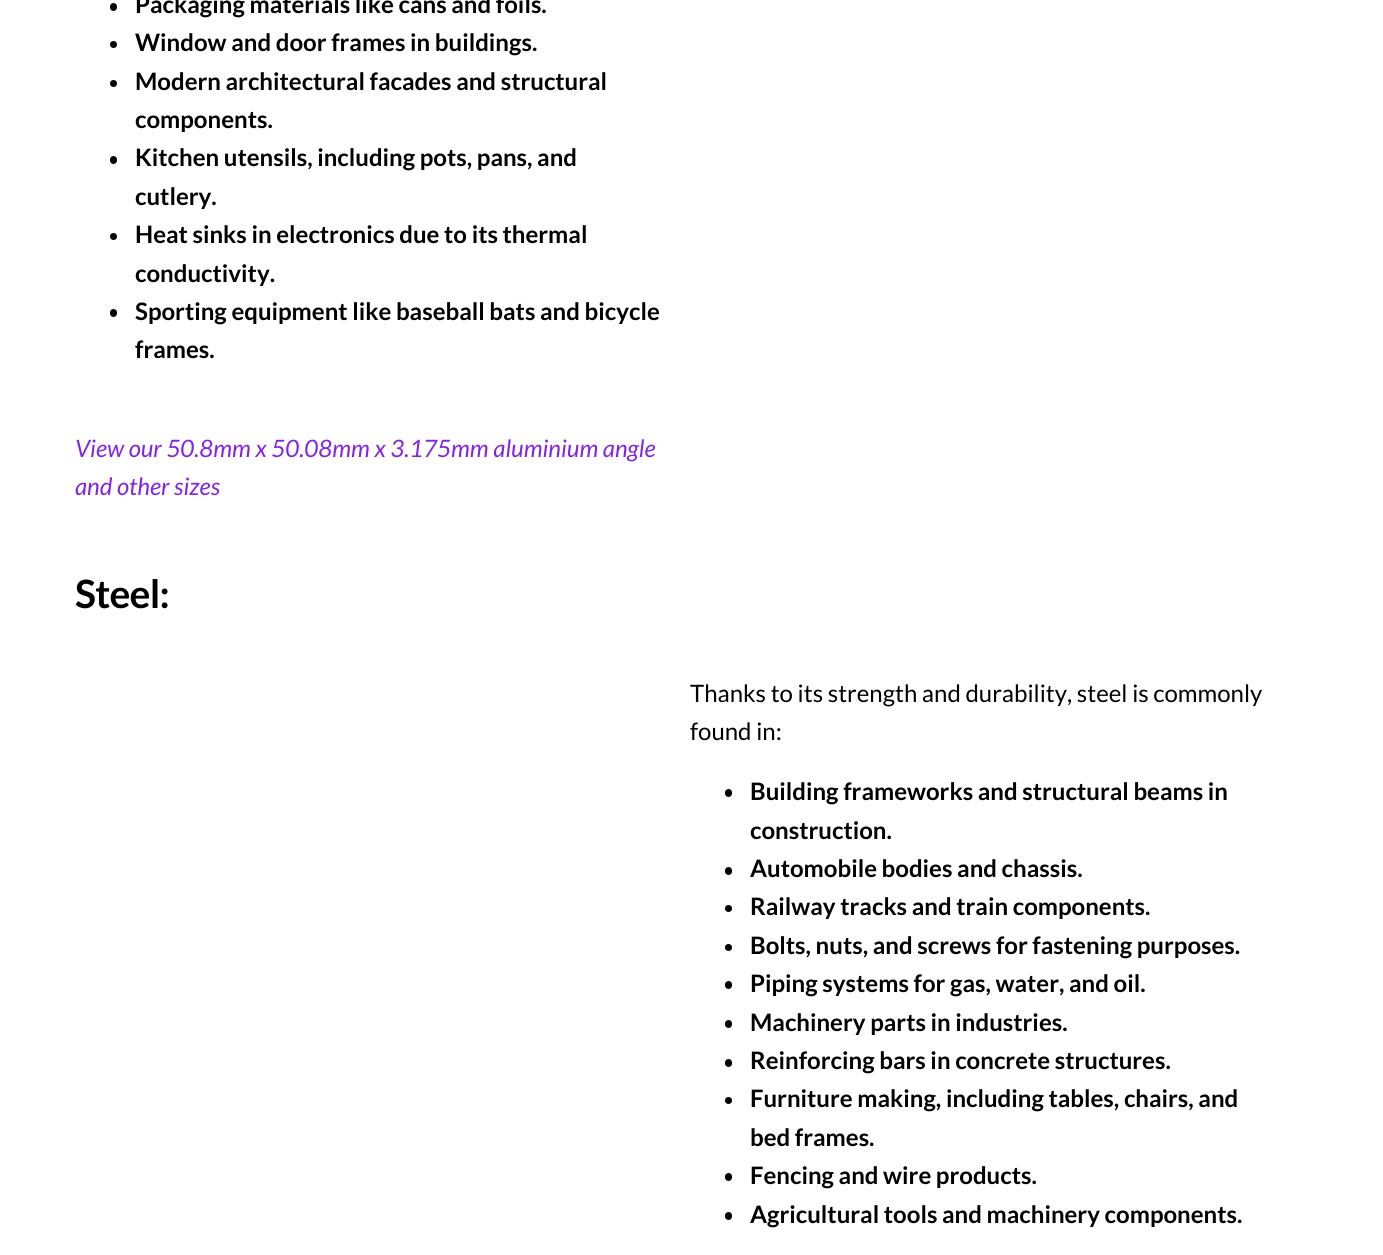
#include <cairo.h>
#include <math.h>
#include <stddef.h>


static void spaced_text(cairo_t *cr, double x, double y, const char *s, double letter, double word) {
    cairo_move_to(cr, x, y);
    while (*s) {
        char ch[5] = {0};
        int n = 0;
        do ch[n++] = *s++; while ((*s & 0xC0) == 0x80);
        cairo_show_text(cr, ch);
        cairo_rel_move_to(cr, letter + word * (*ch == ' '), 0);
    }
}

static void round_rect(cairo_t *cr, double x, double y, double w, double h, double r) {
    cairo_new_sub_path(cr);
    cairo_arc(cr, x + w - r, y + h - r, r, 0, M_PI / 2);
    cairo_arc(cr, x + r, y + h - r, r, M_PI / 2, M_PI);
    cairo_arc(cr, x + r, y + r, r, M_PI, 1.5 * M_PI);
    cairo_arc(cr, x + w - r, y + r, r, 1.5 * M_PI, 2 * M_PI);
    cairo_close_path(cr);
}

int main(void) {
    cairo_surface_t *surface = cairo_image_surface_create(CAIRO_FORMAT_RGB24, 1383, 1255);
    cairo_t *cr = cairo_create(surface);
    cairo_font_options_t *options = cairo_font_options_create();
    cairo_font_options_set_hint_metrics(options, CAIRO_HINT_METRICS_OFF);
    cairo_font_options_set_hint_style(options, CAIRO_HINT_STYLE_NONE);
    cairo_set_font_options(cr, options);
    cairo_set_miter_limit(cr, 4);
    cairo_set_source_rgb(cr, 1, 1, 1);
    cairo_paint(cr);
    cairo_set_source_rgb(cr, 0, 0, 0);
    round_rect(cr, 110, 3, 7, 8, 3.5);
    cairo_fill(cr);
    cairo_select_font_face(cr, "Lato", CAIRO_FONT_SLANT_NORMAL, CAIRO_FONT_WEIGHT_BOLD);
    cairo_set_font_size(cr, 24);
    cairo_move_to(cr, 135, 13);
    cairo_show_text(cr, "Packaging materials like cans and foils.");
    cairo_new_path(cr);
    cairo_arc(cr, 113.5, 44.5, 3.5, 0, 2 * M_PI);
    cairo_fill(cr);
    cairo_move_to(cr, 135, 51);
    cairo_show_text(cr, "Window and door frames in buildings.");
    cairo_new_path(cr);
    cairo_arc(cr, 113.5, 83.5, 3.5, 0, 2 * M_PI);
    cairo_fill(cr);
    cairo_move_to(cr, 135, 90);
    cairo_show_text(cr, "Modern architectural facades and structural");
    cairo_move_to(cr, 135, 128);
    cairo_show_text(cr, "components.");
    round_rect(cr, 110, 156, 7, 8, 3.5);
    cairo_fill(cr);
    cairo_move_to(cr, 135, 166);
    cairo_show_text(cr, "Kitchen utensils, including pots, pans, and");
    cairo_move_to(cr, 135, 205);
    cairo_show_text(cr, "cutlery.");
    cairo_new_path(cr);
    cairo_arc(cr, 113.5, 236.5, 3.5, 0, 2 * M_PI);
    cairo_fill(cr);
    cairo_move_to(cr, 135, 243);
    cairo_show_text(cr, "Heat sinks in electronics due to its thermal");
    cairo_move_to(cr, 135, 282);
    cairo_show_text(cr, "conductivity.");
    round_rect(cr, 110, 309, 7, 8, 3.5);
    cairo_fill(cr);
    cairo_move_to(cr, 135, 320);
    cairo_show_text(cr, "Sporting equipment like baseball bats and bicycle");
    cairo_move_to(cr, 135, 358);
    cairo_show_text(cr, "frames.");
    cairo_select_font_face(cr, "Lato", CAIRO_FONT_SLANT_ITALIC, CAIRO_FONT_WEIGHT_NORMAL);
    cairo_set_source_rgb(cr, 0.514, 0.141, 0.886);
    cairo_move_to(cr, 75, 457);
    cairo_show_text(cr, "View our 50.8mm x 50.08mm x 3.175mm aluminium angle");
    cairo_move_to(cr, 75, 495);
    cairo_show_text(cr, "and other sizes");
    cairo_select_font_face(cr, "Lato", CAIRO_FONT_SLANT_NORMAL, CAIRO_FONT_WEIGHT_BOLD);
    cairo_set_font_size(cr, 39);
    cairo_set_source_rgb(cr, 0, 0, 0);
    spaced_text(cr, 75, 608, "Steel:", -0.75, 0);
    cairo_select_font_face(cr, "Lato", CAIRO_FONT_SLANT_NORMAL, CAIRO_FONT_WEIGHT_NORMAL);
    cairo_set_font_size(cr, 24);
    cairo_move_to(cr, 690, 702);
    cairo_show_text(cr, "Thanks to its strength and durability, steel is commonly");
    cairo_move_to(cr, 690, 740);
    cairo_show_text(cr, "found in:");
    round_rect(cr, 725, 789, 7, 8, 3.5);
    cairo_fill(cr);
    cairo_select_font_face(cr, "Lato", CAIRO_FONT_SLANT_NORMAL, CAIRO_FONT_WEIGHT_BOLD);
    cairo_move_to(cr, 750, 800);
    cairo_show_text(cr, "Building frameworks and structural beams in");
    cairo_move_to(cr, 750, 839);
    cairo_show_text(cr, "construction.");
    round_rect(cr, 725, 867, 7, 8, 3.5);
    cairo_fill(cr);
    cairo_move_to(cr, 750, 877);
    cairo_show_text(cr, "Automobile bodies and chassis.");
    cairo_new_path(cr);
    cairo_arc(cr, 728.5, 908.5, 3.5, 0, 2 * M_PI);
    cairo_fill(cr);
    cairo_move_to(cr, 750, 915);
    cairo_show_text(cr, "Railway tracks and train components.");
    cairo_new_path(cr);
    cairo_arc(cr, 728.5, 947.5, 3.5, 0, 2 * M_PI);
    cairo_fill(cr);
    cairo_move_to(cr, 750, 954);
    cairo_show_text(cr, "Bolts, nuts, and screws for fastening purposes.");
    round_rect(cr, 725, 981, 7, 8, 3.5);
    cairo_fill(cr);
    cairo_move_to(cr, 750, 992);
    cairo_show_text(cr, "Piping systems for gas, water, and oil.");
    round_rect(cr, 725, 1020, 7, 8, 3.5);
    cairo_fill(cr);
    cairo_move_to(cr, 750, 1031);
    cairo_show_text(cr, "Machinery parts in industries.");
    round_rect(cr, 725, 1059, 7, 8, 3.5);
    cairo_fill(cr);
    cairo_move_to(cr, 750, 1069);
    cairo_show_text(cr, "Reinforcing bars in concrete structures.");
    cairo_new_path(cr);
    cairo_arc(cr, 728.5, 1100.5, 3.5, 0, 2 * M_PI);
    cairo_fill(cr);
    cairo_move_to(cr, 750, 1107);
    cairo_show_text(cr, "Furniture making, including tables, chairs, and");
    cairo_move_to(cr, 750, 1146);
    cairo_show_text(cr, "bed frames.");
    round_rect(cr, 725, 1173, 7, 8, 3.5);
    cairo_fill(cr);
    cairo_move_to(cr, 750, 1184);
    cairo_show_text(cr, "Fencing and wire products.");
    round_rect(cr, 725, 1212, 7, 8, 3.5);
    cairo_fill(cr);
    cairo_move_to(cr, 750, 1223);
    cairo_show_text(cr, "Agricultural tools and machinery components.");
    cairo_surface_write_to_png(surface, "page.png");
    cairo_font_options_destroy(options);
    cairo_destroy(cr);
    cairo_surface_destroy(surface);
    return 0;
}
